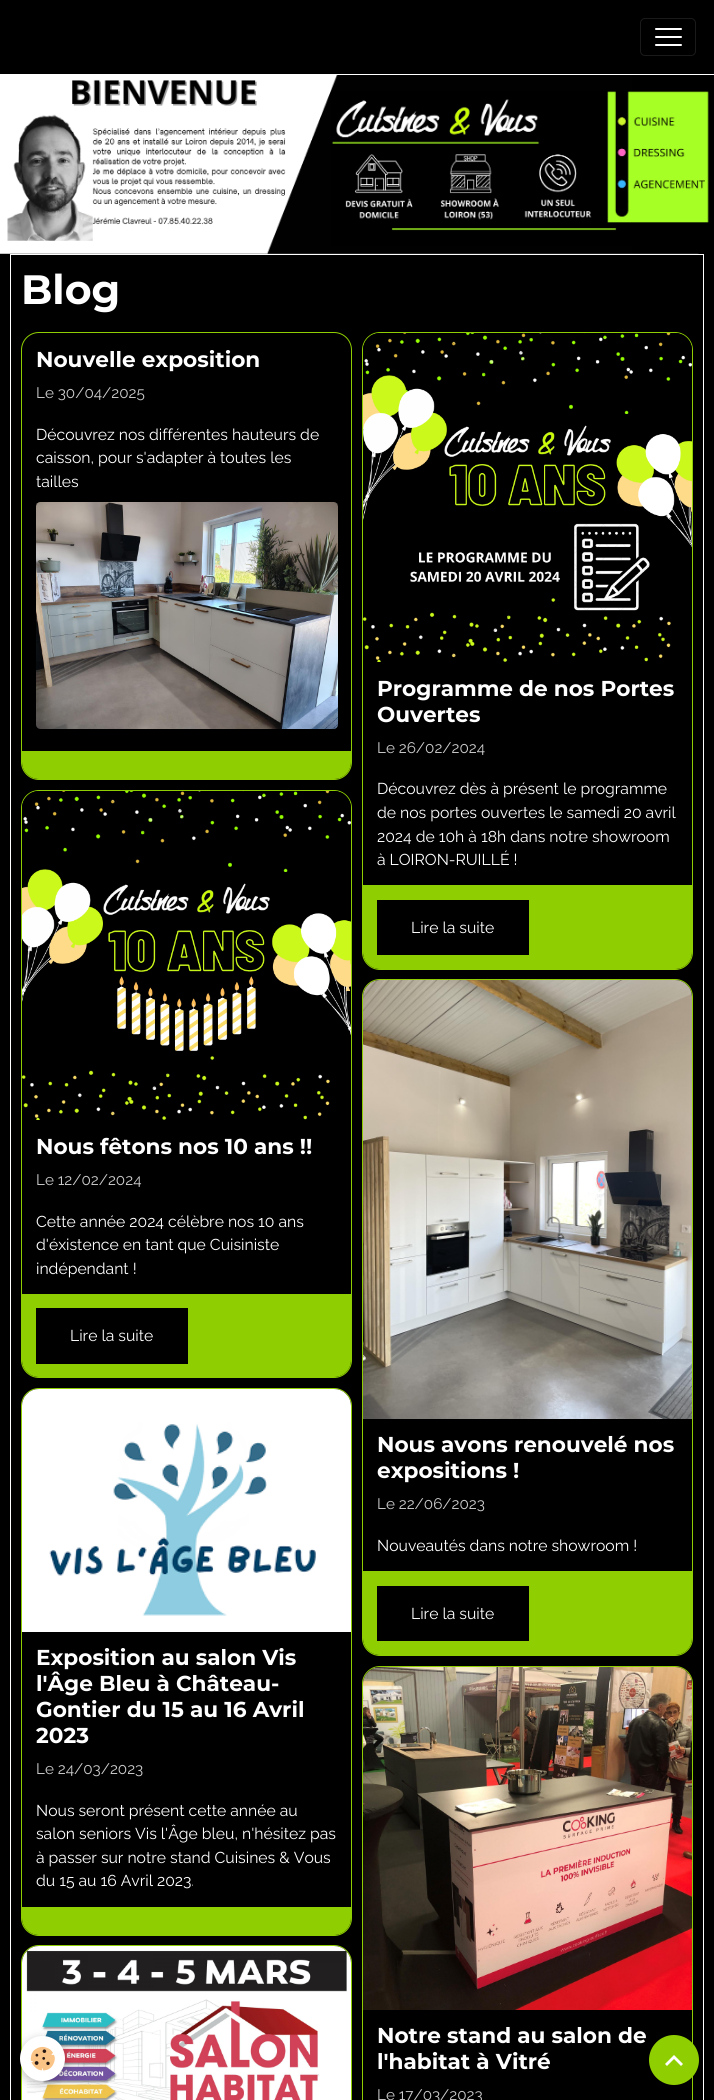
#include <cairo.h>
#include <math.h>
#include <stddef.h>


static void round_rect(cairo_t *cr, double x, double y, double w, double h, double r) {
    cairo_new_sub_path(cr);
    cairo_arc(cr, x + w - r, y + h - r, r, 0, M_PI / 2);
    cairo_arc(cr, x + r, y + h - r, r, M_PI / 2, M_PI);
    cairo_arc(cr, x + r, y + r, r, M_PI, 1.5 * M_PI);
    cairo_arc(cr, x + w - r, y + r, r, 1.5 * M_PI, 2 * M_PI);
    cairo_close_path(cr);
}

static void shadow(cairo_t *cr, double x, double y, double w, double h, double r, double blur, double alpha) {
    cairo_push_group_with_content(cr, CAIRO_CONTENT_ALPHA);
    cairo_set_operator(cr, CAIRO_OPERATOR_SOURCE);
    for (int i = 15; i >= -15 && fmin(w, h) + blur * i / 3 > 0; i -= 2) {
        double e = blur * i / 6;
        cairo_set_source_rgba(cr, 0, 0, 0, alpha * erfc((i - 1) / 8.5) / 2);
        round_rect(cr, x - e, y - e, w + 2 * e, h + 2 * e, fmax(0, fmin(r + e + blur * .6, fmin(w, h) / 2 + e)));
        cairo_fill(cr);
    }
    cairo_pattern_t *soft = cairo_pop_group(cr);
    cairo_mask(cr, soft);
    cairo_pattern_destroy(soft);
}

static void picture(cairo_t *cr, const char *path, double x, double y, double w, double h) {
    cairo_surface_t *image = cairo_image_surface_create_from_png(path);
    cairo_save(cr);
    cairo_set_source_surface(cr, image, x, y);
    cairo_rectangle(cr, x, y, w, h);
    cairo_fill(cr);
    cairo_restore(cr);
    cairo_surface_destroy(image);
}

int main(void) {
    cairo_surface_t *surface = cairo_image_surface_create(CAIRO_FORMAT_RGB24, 714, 2100);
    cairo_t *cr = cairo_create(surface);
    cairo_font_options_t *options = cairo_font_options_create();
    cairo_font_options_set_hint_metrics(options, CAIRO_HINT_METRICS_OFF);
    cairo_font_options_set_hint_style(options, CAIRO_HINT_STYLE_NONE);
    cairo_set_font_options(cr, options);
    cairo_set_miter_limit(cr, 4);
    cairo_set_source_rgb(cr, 0, 0, 0);
    cairo_paint(cr);
    cairo_set_source_rgb(cr, 1, 1, 1);
    cairo_rectangle(cr, 0, 74, 714, 1);
    cairo_fill(cr);
    round_rect(cr, 640.5, 18.5, 55, 37, 4.5);
    cairo_set_source_rgb(cr, 0.102, 0.102, 0.102);
    cairo_set_line_width(cr, 1);
    cairo_stroke(cr);
    cairo_set_source_rgb(cr, 1, 1, 1);
    round_rect(cr, 655, 28, 27, 2, 1);
    cairo_fill(cr);
    round_rect(cr, 655, 36, 27, 2, 1);
    cairo_fill(cr);
    round_rect(cr, 655, 44, 27, 2, 1);
    cairo_fill(cr);
    picture(cr, "img1.png", 0, 75, 709, 179);
    cairo_rectangle(cr, 10.5, 254.5, 693, 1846);
    cairo_stroke(cr);
    cairo_select_font_face(cr, "Montserrat", CAIRO_FONT_SLANT_NORMAL, CAIRO_FONT_WEIGHT_BOLD);
    cairo_set_font_size(cr, 41);
    cairo_move_to(cr, 21, 304);
    cairo_show_text(cr, "Blog");
    round_rect(cr, 21.5, 332.5, 330, 447, 17.5);
    cairo_set_source_rgb(cr, 0.561, 0.808, 0);
    cairo_stroke(cr);
    cairo_set_font_size(cr, 21.6);
    cairo_set_source_rgb(cr, 1, 1, 1);
    cairo_move_to(cr, 36, 367);
    cairo_show_text(cr, "Nouvelle exposition");
    cairo_select_font_face(cr, "Raleway", CAIRO_FONT_SLANT_NORMAL, CAIRO_FONT_WEIGHT_NORMAL);
    cairo_set_font_size(cr, 15.25);
    cairo_set_source_rgb(cr, 0.8, 0.8, 0.8);
    cairo_move_to(cr, 36, 398);
    cairo_show_text(cr, "Le 30/04/2025");
    cairo_set_font_size(cr, 15.75);
    cairo_set_source_rgb(cr, 1, 1, 1);
    cairo_move_to(cr, 36, 440);
    cairo_show_text(cr, "Découvrez nos différentes hauteurs de");
    cairo_move_to(cr, 36, 463);
    cairo_show_text(cr, "caisson, pour s'adapter à toutes les");
    cairo_move_to(cr, 36, 487);
    cairo_show_text(cr, "tailles");
    picture(cr, "img2.png", 36, 502, 302, 227);
    cairo_set_source_rgb(cr, 0.561, 0.808, 0);
    cairo_new_path(cr);
    cairo_move_to(cr, 22, 751);
    cairo_line_to(cr, 351, 751);
    cairo_line_to(cr, 351, 762);
    cairo_curve_to(cr, 351, 771.5, 343.5, 779, 334, 779);
    cairo_line_to(cr, 39, 779);
    cairo_curve_to(cr, 29.5, 779, 22, 771.5, 22, 762);
    cairo_close_path(cr);
    cairo_fill(cr);
    round_rect(cr, 362.5, 332.5, 330, 637, 17.5);
    cairo_stroke(cr);
    picture(cr, "img3.png", 363, 333, 329, 329);
    cairo_select_font_face(cr, "Montserrat", CAIRO_FONT_SLANT_NORMAL, CAIRO_FONT_WEIGHT_BOLD);
    cairo_set_font_size(cr, 21.6);
    cairo_set_source_rgb(cr, 1, 1, 1);
    cairo_move_to(cr, 377, 696);
    cairo_show_text(cr, "Programme de nos Portes");
    cairo_move_to(cr, 377, 722);
    cairo_show_text(cr, "Ouvertes");
    cairo_select_font_face(cr, "Raleway", CAIRO_FONT_SLANT_NORMAL, CAIRO_FONT_WEIGHT_NORMAL);
    cairo_set_font_size(cr, 15.25);
    cairo_set_source_rgb(cr, 0.8, 0.8, 0.8);
    cairo_move_to(cr, 377, 753);
    cairo_show_text(cr, "Le 26/02/2024");
    cairo_set_font_size(cr, 15.75);
    cairo_set_source_rgb(cr, 1, 1, 1);
    cairo_move_to(cr, 377, 794);
    cairo_show_text(cr, "Découvrez dès à présent le programme");
    cairo_move_to(cr, 377, 818);
    cairo_show_text(cr, "de nos portes ouvertes le samedi 20 avril");
    cairo_move_to(cr, 377, 842);
    cairo_show_text(cr, "2024 de 10h à 18h dans notre showroom");
    cairo_move_to(cr, 377, 865);
    cairo_show_text(cr, "à LOIRON-RUILLÉ !");
    cairo_set_source_rgb(cr, 0.561, 0.808, 0);
    cairo_new_path(cr);
    cairo_move_to(cr, 363, 885);
    cairo_line_to(cr, 692, 885);
    cairo_line_to(cr, 692, 952);
    cairo_curve_to(cr, 692, 961.5, 684.5, 969, 675, 969);
    cairo_line_to(cr, 380, 969);
    cairo_curve_to(cr, 370.5, 969, 363, 961.5, 363, 952);
    cairo_close_path(cr);
    cairo_fill(cr);
    cairo_set_source_rgb(cr, 0, 0, 0);
    cairo_rectangle(cr, 377, 900, 152, 55);
    cairo_fill(cr);
    cairo_set_source_rgb(cr, 1, 1, 1);
    cairo_move_to(cr, 411, 933);
    cairo_show_text(cr, "Lire la suite");
    round_rect(cr, 21.5, 790.5, 330, 587, 17.5);
    cairo_set_source_rgb(cr, 0.561, 0.808, 0);
    cairo_stroke(cr);
    picture(cr, "img4.png", 22, 791, 329, 329);
    cairo_select_font_face(cr, "Montserrat", CAIRO_FONT_SLANT_NORMAL, CAIRO_FONT_WEIGHT_BOLD);
    cairo_set_font_size(cr, 21.6);
    cairo_set_source_rgb(cr, 1, 1, 1);
    cairo_move_to(cr, 36, 1154);
    cairo_show_text(cr, "Nous fêtons nos 10 ans !!");
    cairo_select_font_face(cr, "Raleway", CAIRO_FONT_SLANT_NORMAL, CAIRO_FONT_WEIGHT_NORMAL);
    cairo_set_font_size(cr, 15.25);
    cairo_set_source_rgb(cr, 0.8, 0.8, 0.8);
    cairo_move_to(cr, 36, 1185);
    cairo_show_text(cr, "Le 12/02/2024");
    cairo_set_font_size(cr, 15.75);
    cairo_set_source_rgb(cr, 1, 1, 1);
    cairo_move_to(cr, 36, 1227);
    cairo_show_text(cr, "Cette année 2024 célèbre nos 10 ans");
    cairo_move_to(cr, 36, 1250);
    cairo_show_text(cr, "d'éxistence en tant que Cuisiniste");
    cairo_move_to(cr, 36, 1274);
    cairo_show_text(cr, "indépendant !");
    cairo_set_source_rgb(cr, 0.561, 0.808, 0);
    cairo_new_path(cr);
    cairo_move_to(cr, 22, 1294);
    cairo_line_to(cr, 351, 1294);
    cairo_line_to(cr, 351, 1360);
    cairo_curve_to(cr, 351, 1369.5, 343.5, 1377, 334, 1377);
    cairo_line_to(cr, 39, 1377);
    cairo_curve_to(cr, 29.5, 1377, 22, 1369.5, 22, 1360);
    cairo_close_path(cr);
    cairo_fill(cr);
    cairo_set_source_rgb(cr, 0, 0, 0);
    cairo_rectangle(cr, 36, 1308, 152, 56);
    cairo_fill(cr);
    cairo_set_source_rgb(cr, 1, 1, 1);
    cairo_move_to(cr, 70, 1341);
    cairo_show_text(cr, "Lire la suite");
    round_rect(cr, 362.5, 979.5, 330, 676, 17.5);
    cairo_set_source_rgb(cr, 0.561, 0.808, 0);
    cairo_stroke(cr);
    picture(cr, "img5.png", 363, 980, 329, 439);
    cairo_select_font_face(cr, "Montserrat", CAIRO_FONT_SLANT_NORMAL, CAIRO_FONT_WEIGHT_BOLD);
    cairo_set_font_size(cr, 21.6);
    cairo_set_source_rgb(cr, 1, 1, 1);
    cairo_move_to(cr, 377, 1452);
    cairo_show_text(cr, "Nous avons renouvelé nos");
    cairo_move_to(cr, 377, 1478);
    cairo_show_text(cr, "expositions !");
    cairo_select_font_face(cr, "Raleway", CAIRO_FONT_SLANT_NORMAL, CAIRO_FONT_WEIGHT_NORMAL);
    cairo_set_font_size(cr, 15.25);
    cairo_set_source_rgb(cr, 0.8, 0.8, 0.8);
    cairo_move_to(cr, 377, 1509);
    cairo_show_text(cr, "Le 22/06/2023");
    cairo_set_font_size(cr, 15.75);
    cairo_set_source_rgb(cr, 1, 1, 1);
    cairo_move_to(cr, 377, 1551);
    cairo_show_text(cr, "Nouveautés dans notre showroom !");
    cairo_set_source_rgb(cr, 0.561, 0.808, 0);
    cairo_new_path(cr);
    cairo_move_to(cr, 363, 1571);
    cairo_line_to(cr, 692, 1571);
    cairo_line_to(cr, 692, 1638);
    cairo_curve_to(cr, 692, 1647.5, 684.5, 1655, 675, 1655);
    cairo_line_to(cr, 380, 1655);
    cairo_curve_to(cr, 370.5, 1655, 363, 1647.5, 363, 1638);
    cairo_close_path(cr);
    cairo_fill(cr);
    cairo_set_source_rgb(cr, 0, 0, 0);
    cairo_rectangle(cr, 377, 1586, 152, 55);
    cairo_fill(cr);
    cairo_set_source_rgb(cr, 1, 1, 1);
    cairo_move_to(cr, 411, 1619);
    cairo_show_text(cr, "Lire la suite");
    round_rect(cr, 21.5, 1388.5, 330, 547, 17.5);
    cairo_set_source_rgb(cr, 0.561, 0.808, 0);
    cairo_stroke(cr);
    picture(cr, "img6.png", 22, 1389, 329, 243);
    cairo_select_font_face(cr, "Montserrat", CAIRO_FONT_SLANT_NORMAL, CAIRO_FONT_WEIGHT_BOLD);
    cairo_set_font_size(cr, 21.6);
    cairo_set_source_rgb(cr, 1, 1, 1);
    cairo_move_to(cr, 36, 1665);
    cairo_show_text(cr, "Exposition au salon Vis");
    cairo_move_to(cr, 36, 1691);
    cairo_show_text(cr, "l'Âge Bleu à Château-");
    cairo_move_to(cr, 36, 1717);
    cairo_show_text(cr, "Gontier du 15 au 16 Avril");
    cairo_move_to(cr, 36, 1743);
    cairo_show_text(cr, "2023");
    cairo_select_font_face(cr, "Raleway", CAIRO_FONT_SLANT_NORMAL, CAIRO_FONT_WEIGHT_NORMAL);
    cairo_set_font_size(cr, 15.25);
    cairo_set_source_rgb(cr, 0.8, 0.8, 0.8);
    cairo_move_to(cr, 36, 1774);
    cairo_show_text(cr, "Le 24/03/2023");
    cairo_set_font_size(cr, 15.75);
    cairo_set_source_rgb(cr, 1, 1, 1);
    cairo_move_to(cr, 36, 1816);
    cairo_show_text(cr, "Nous seront présent cette année au");
    cairo_move_to(cr, 36, 1839);
    cairo_show_text(cr, "salon seniors Vis l'Âge bleu, n'hésitez pas");
    cairo_move_to(cr, 36, 1863);
    cairo_show_text(cr, "à passer sur notre stand Cuisines & Vous");
    cairo_move_to(cr, 36, 1886);
    cairo_show_text(cr, "du 15 au 16 Avril 2023.");
    cairo_set_source_rgb(cr, 0.561, 0.808, 0);
    cairo_new_path(cr);
    cairo_move_to(cr, 22, 1907);
    cairo_line_to(cr, 351, 1907);
    cairo_line_to(cr, 351, 1918);
    cairo_curve_to(cr, 351, 1927.5, 343.5, 1935, 334, 1935);
    cairo_line_to(cr, 39, 1935);
    cairo_curve_to(cr, 29.5, 1935, 22, 1927.5, 22, 1918);
    cairo_close_path(cr);
    cairo_fill(cr);
    round_rect(cr, 21.5, 1945.5, 330, 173, 17.5);
    cairo_stroke(cr);
    picture(cr, "img7.png", 22, 1946, 329, 154);
    round_rect(cr, 362.5, 1666.5, 330, 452, 17.5);
    cairo_stroke(cr);
    picture(cr, "img8.png", 363, 1667, 329, 343);
    cairo_select_font_face(cr, "Montserrat", CAIRO_FONT_SLANT_NORMAL, CAIRO_FONT_WEIGHT_BOLD);
    cairo_set_font_size(cr, 21.6);
    cairo_set_source_rgb(cr, 1, 1, 1);
    cairo_move_to(cr, 377, 2043);
    cairo_show_text(cr, "Notre stand au salon de");
    cairo_move_to(cr, 377, 2069);
    cairo_show_text(cr, "l'habitat à Vitré");
    cairo_select_font_face(cr, "Raleway", CAIRO_FONT_SLANT_NORMAL, CAIRO_FONT_WEIGHT_NORMAL);
    cairo_set_font_size(cr, 15.25);
    cairo_set_source_rgb(cr, 0.8, 0.8, 0.8);
    cairo_move_to(cr, 377, 2100);
    cairo_show_text(cr, "Le 17/03/2023");
    cairo_set_source_rgb(cr, 0, 0, 0);
    shadow(cr, 20, 2039, 45, 45, 22.5, 5, 0.24);
    cairo_set_source_rgb(cr, 1, 1, 1);
    cairo_arc(cr, 42.5, 2058.5, 22.5, 0, 2 * M_PI);
    cairo_fill(cr);
    picture(cr, "img9.png", 30, 2046, 25, 25);
    cairo_set_source_rgb(cr, 0.561, 0.808, 0);
    cairo_arc(cr, 674, 2060, 25, 0, 2 * M_PI);
    cairo_fill(cr);
    cairo_set_source_rgb(cr, 1, 1, 1);
    cairo_new_path(cr);
    cairo_move_to(cr, 674, 2055);
    cairo_line_to(cr, 683, 2064);
    cairo_line_to(cr, 681, 2066);
    cairo_line_to(cr, 674, 2059);
    cairo_line_to(cr, 667, 2066);
    cairo_line_to(cr, 665, 2064);
    cairo_close_path(cr);
    cairo_fill(cr);
    cairo_surface_write_to_png(surface, "page.png");
    cairo_font_options_destroy(options);
    cairo_destroy(cr);
    cairo_surface_destroy(surface);
    return 0;
}
